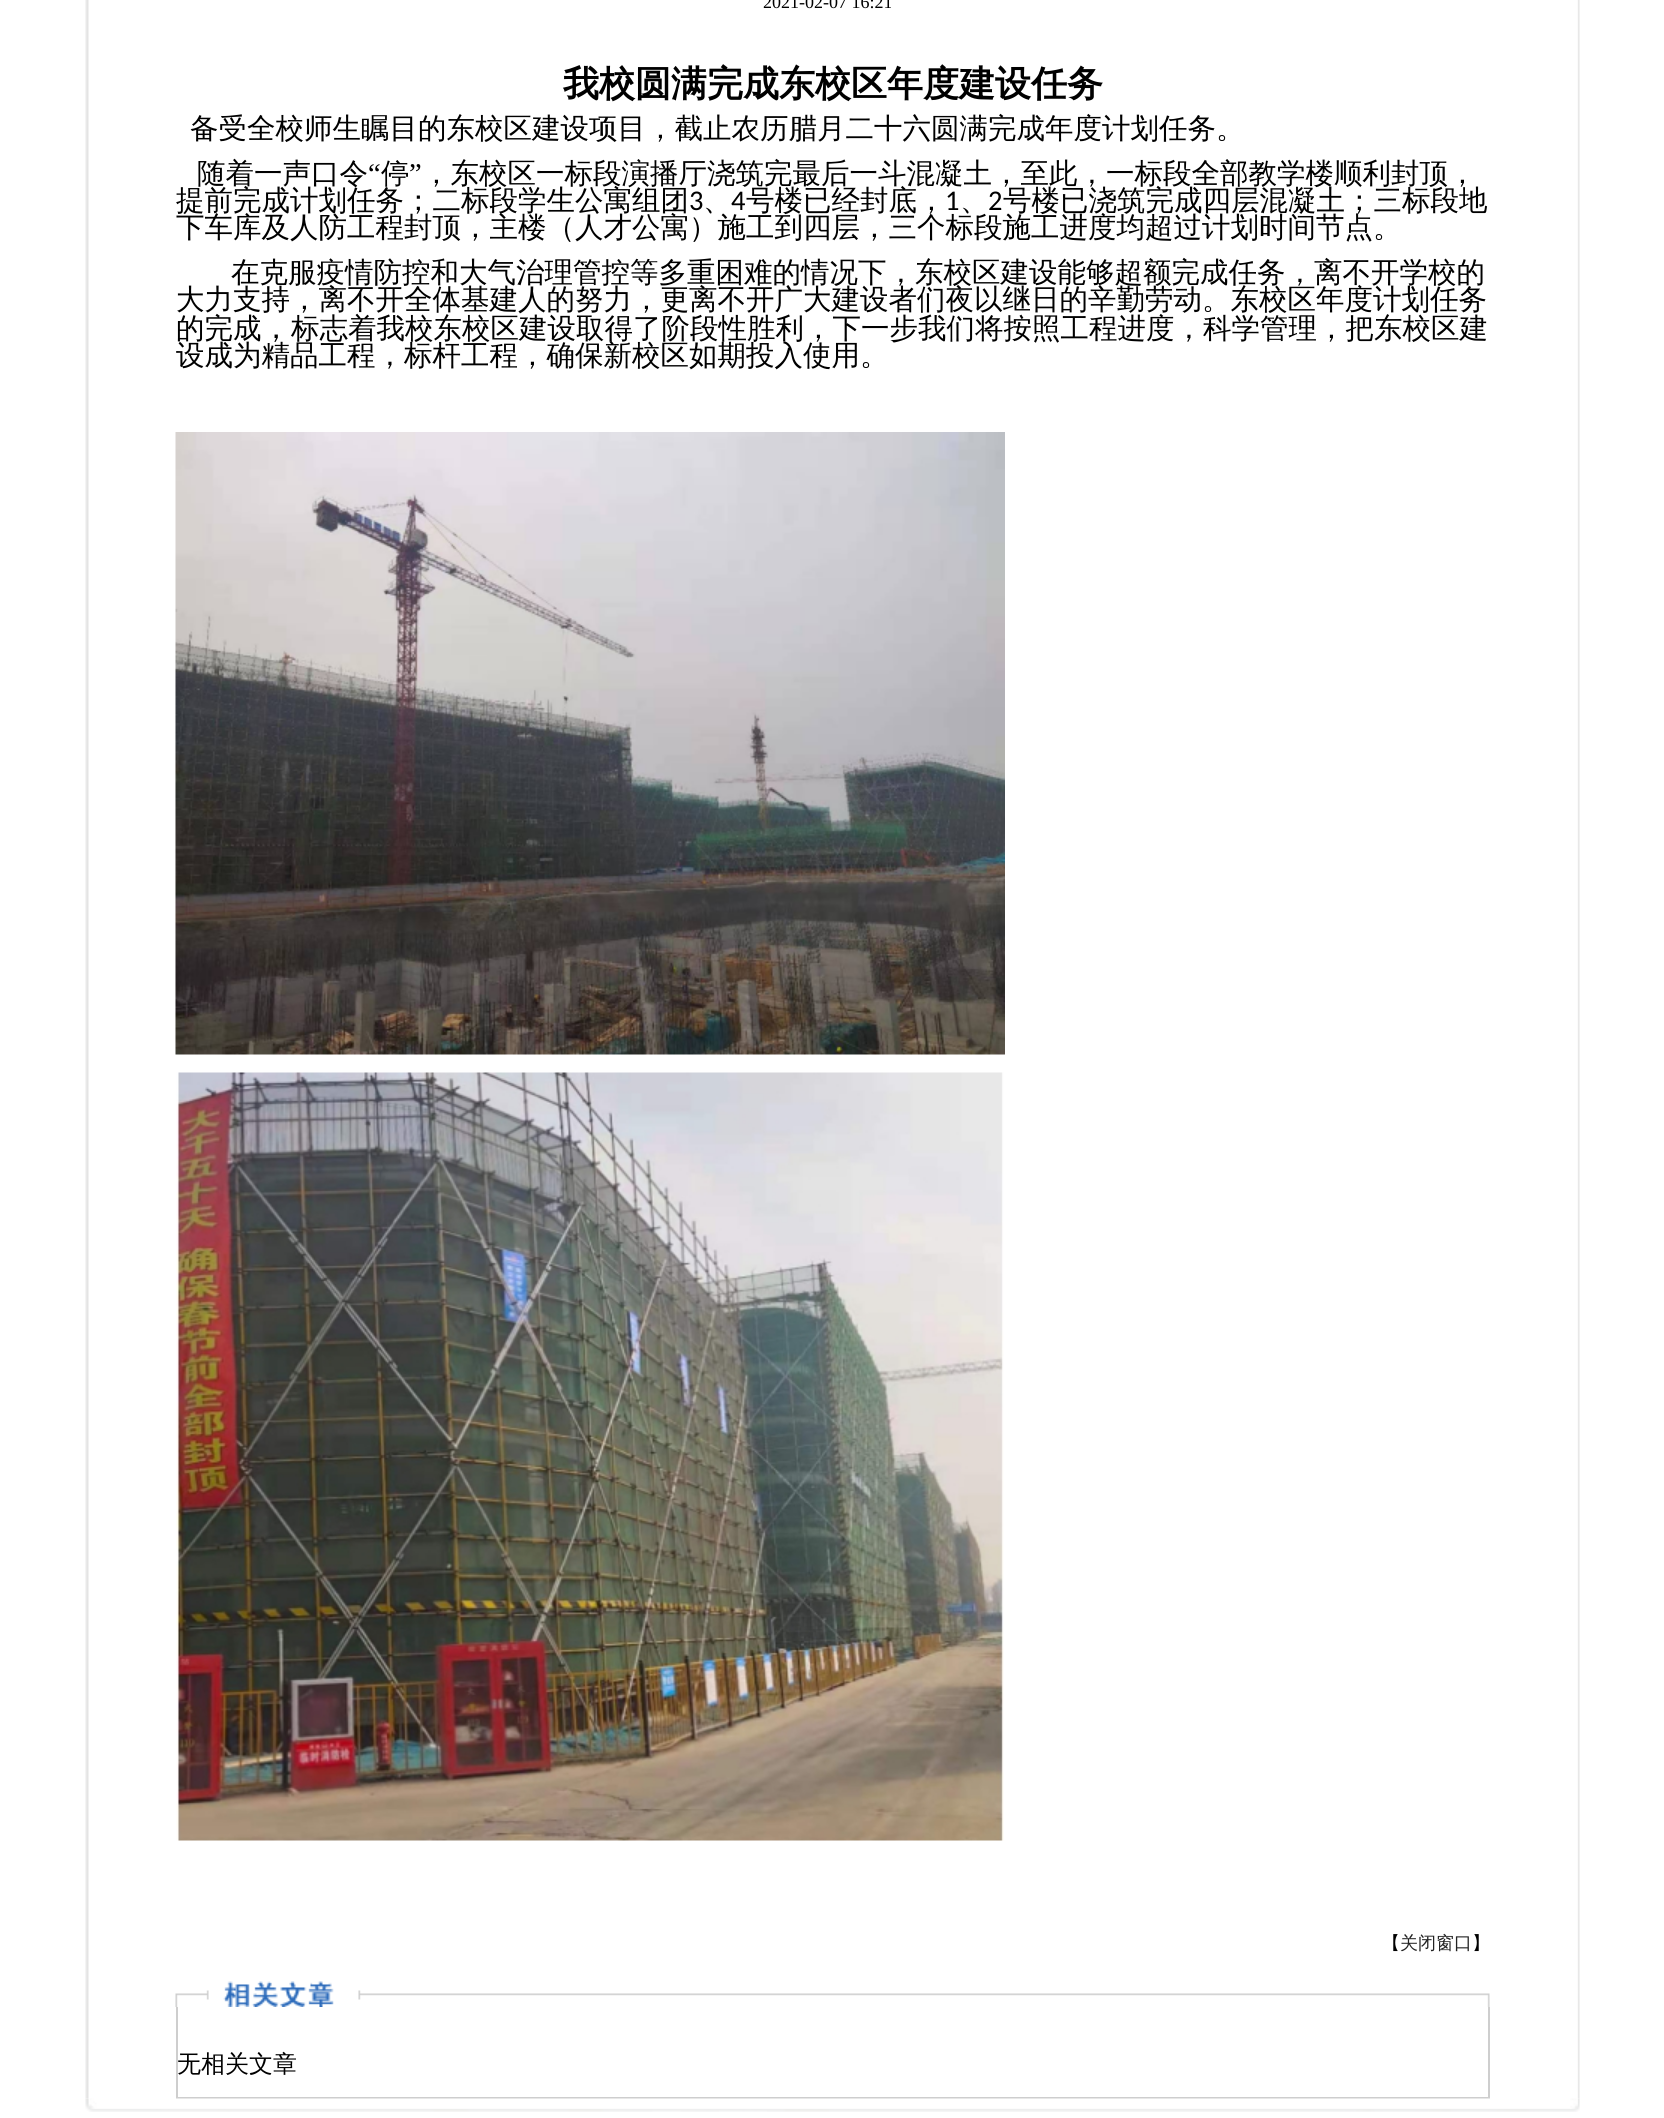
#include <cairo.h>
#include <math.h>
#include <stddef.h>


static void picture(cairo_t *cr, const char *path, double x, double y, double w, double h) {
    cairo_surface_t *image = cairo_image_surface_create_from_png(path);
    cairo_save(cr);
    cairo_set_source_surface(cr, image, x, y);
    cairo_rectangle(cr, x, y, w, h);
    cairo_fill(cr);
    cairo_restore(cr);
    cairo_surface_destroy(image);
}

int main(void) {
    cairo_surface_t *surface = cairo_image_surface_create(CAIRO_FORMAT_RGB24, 1664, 2118);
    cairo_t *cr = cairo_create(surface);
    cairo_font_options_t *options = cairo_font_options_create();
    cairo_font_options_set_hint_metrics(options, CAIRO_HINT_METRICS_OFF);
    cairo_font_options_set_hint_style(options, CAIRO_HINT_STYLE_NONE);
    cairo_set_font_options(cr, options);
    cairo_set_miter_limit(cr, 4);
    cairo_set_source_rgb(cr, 1, 1, 1);
    cairo_paint(cr);
    picture(cr, "img1.png", 85, 0, 1495, 2099);
    cairo_select_font_face(cr, "Liberation Serif", CAIRO_FONT_SLANT_NORMAL, CAIRO_FONT_WEIGHT_NORMAL);
    cairo_set_font_size(cr, 18);
    cairo_set_source_rgb(cr, 0, 0, 0);
    cairo_move_to(cr, 763, 8);
    cairo_show_text(cr, "2021-02-07 16:21");
    cairo_select_font_face(cr, "WenQuanYi Zen Hei", CAIRO_FONT_SLANT_NORMAL, CAIRO_FONT_WEIGHT_BOLD);
    cairo_set_font_size(cr, 36);
    cairo_move_to(cr, 563, 96);
    cairo_show_text(cr, "我校圆满完成东校区年度建设任务");
    cairo_select_font_face(cr, "WenQuanYi Zen Hei Medium", CAIRO_FONT_SLANT_NORMAL, CAIRO_FONT_WEIGHT_NORMAL);
    cairo_set_font_size(cr, 28.5);
    cairo_move_to(cr, 190, 138);
    cairo_show_text(cr, "备受全校师生瞩目的东校区建设项目，截止农历腊月二十六圆满完成年度计划任务。");
    cairo_move_to(cr, 197, 183);
    cairo_show_text(cr, "随着一声口令");
    cairo_select_font_face(cr, "Liberation Serif", CAIRO_FONT_SLANT_NORMAL, CAIRO_FONT_WEIGHT_NORMAL);
    cairo_move_to(cr, 368, 183);
    cairo_show_text(cr, "“");
    cairo_select_font_face(cr, "WenQuanYi Zen Hei Medium", CAIRO_FONT_SLANT_NORMAL, CAIRO_FONT_WEIGHT_NORMAL);
    cairo_move_to(cr, 381, 183);
    cairo_show_text(cr, "停");
    cairo_select_font_face(cr, "Liberation Serif", CAIRO_FONT_SLANT_NORMAL, CAIRO_FONT_WEIGHT_NORMAL);
    cairo_move_to(cr, 409, 183);
    cairo_show_text(cr, "”");
    cairo_select_font_face(cr, "WenQuanYi Zen Hei Medium", CAIRO_FONT_SLANT_NORMAL, CAIRO_FONT_WEIGHT_NORMAL);
    cairo_move_to(cr, 422, 183);
    cairo_show_text(cr, "，东校区一标段演播厅浇筑完最后一斗混凝土，至此，一标段全部教学楼顺利封顶，");
    cairo_move_to(cr, 176, 210);
    cairo_show_text(cr, "提前完成计划任务；二标段学生公寓组团");
    cairo_select_font_face(cr, "Carlito", CAIRO_FONT_SLANT_NORMAL, CAIRO_FONT_WEIGHT_NORMAL);
    cairo_move_to(cr, 689, 210);
    cairo_show_text(cr, "3");
    cairo_select_font_face(cr, "WenQuanYi Zen Hei Medium", CAIRO_FONT_SLANT_NORMAL, CAIRO_FONT_WEIGHT_NORMAL);
    cairo_move_to(cr, 703, 210);
    cairo_show_text(cr, "、");
    cairo_select_font_face(cr, "Carlito", CAIRO_FONT_SLANT_NORMAL, CAIRO_FONT_WEIGHT_NORMAL);
    cairo_move_to(cr, 731, 210);
    cairo_show_text(cr, "4");
    cairo_select_font_face(cr, "WenQuanYi Zen Hei Medium", CAIRO_FONT_SLANT_NORMAL, CAIRO_FONT_WEIGHT_NORMAL);
    cairo_move_to(cr, 746, 210);
    cairo_show_text(cr, "号楼已经封底，");
    cairo_select_font_face(cr, "Carlito", CAIRO_FONT_SLANT_NORMAL, CAIRO_FONT_WEIGHT_NORMAL);
    cairo_move_to(cr, 945, 210);
    cairo_show_text(cr, "1");
    cairo_select_font_face(cr, "WenQuanYi Zen Hei Medium", CAIRO_FONT_SLANT_NORMAL, CAIRO_FONT_WEIGHT_NORMAL);
    cairo_move_to(cr, 960, 210);
    cairo_show_text(cr, "、");
    cairo_select_font_face(cr, "Carlito", CAIRO_FONT_SLANT_NORMAL, CAIRO_FONT_WEIGHT_NORMAL);
    cairo_move_to(cr, 988, 210);
    cairo_show_text(cr, "2");
    cairo_select_font_face(cr, "WenQuanYi Zen Hei Medium", CAIRO_FONT_SLANT_NORMAL, CAIRO_FONT_WEIGHT_NORMAL);
    cairo_move_to(cr, 1003, 210);
    cairo_show_text(cr, "号楼已浇筑完成四层混凝土；三标段地");
    cairo_move_to(cr, 176, 237);
    cairo_show_text(cr, "下车库及人防工程封顶，主楼（人才公寓）施工到四层，三个标段施工进度均超过计划时间节点。");
    cairo_move_to(cr, 231, 282);
    cairo_show_text(cr, "在克服疫情防控和大气治理管控等多重困难的情况下，东校区建设能够超额完成任务，离不开学校的");
    cairo_move_to(cr, 176, 309);
    cairo_show_text(cr, "大力支持，离不开全体基建人的努力，更离不开广大建设者们夜以继日的辛勤劳动。东校区年度计划任务");
    cairo_move_to(cr, 176, 338);
    cairo_show_text(cr, "的完成");
    cairo_set_font_size(cr, 30);
    cairo_move_to(cr, 261, 338);
    cairo_show_text(cr, "，");
    cairo_set_font_size(cr, 28.5);
    cairo_move_to(cr, 291, 338);
    cairo_show_text(cr, "标志着我校东校区建设取得了阶段性胜利，下一步我们将按照工程进度，科学管理，把东校区建");
    cairo_move_to(cr, 176, 365);
    cairo_show_text(cr, "设成为精品工程，标杆工程，确保新校区如期投入使用。");
    picture(cr, "img2.png", 175, 432, 830, 623);
    picture(cr, "img3.png", 176, 1072, 828, 769);
    cairo_set_font_size(cr, 18);
    cairo_move_to(cr, 1382, 1949);
    cairo_show_text(cr, "【");
    cairo_set_source_rgb(cr, 0.133, 0.133, 0.133);
    cairo_move_to(cr, 1400, 1949);
    cairo_show_text(cr, "关闭窗口");
    cairo_set_source_rgb(cr, 0, 0, 0);
    cairo_move_to(cr, 1472, 1949);
    cairo_show_text(cr, "】");
    picture(cr, "img4.png", 175, 1981, 1315, 26);
    cairo_set_source_rgb(cr, 0.808, 0.808, 0.808);
    cairo_rectangle(cr, 1488, 2007, 2, 92);
    cairo_fill(cr);
    cairo_rectangle(cr, 176, 2097, 1314, 2);
    cairo_fill(cr);
    cairo_rectangle(cr, 176, 2007, 2, 92);
    cairo_fill(cr);
    cairo_set_font_size(cr, 24);
    cairo_set_source_rgb(cr, 0, 0, 0);
    cairo_move_to(cr, 177, 2072);
    cairo_show_text(cr, "无相关文章");
    picture(cr, "img5.png", 85, 2098, 1495, 14);
    cairo_surface_write_to_png(surface, "page.png");
    cairo_font_options_destroy(options);
    cairo_destroy(cr);
    cairo_surface_destroy(surface);
    return 0;
}
